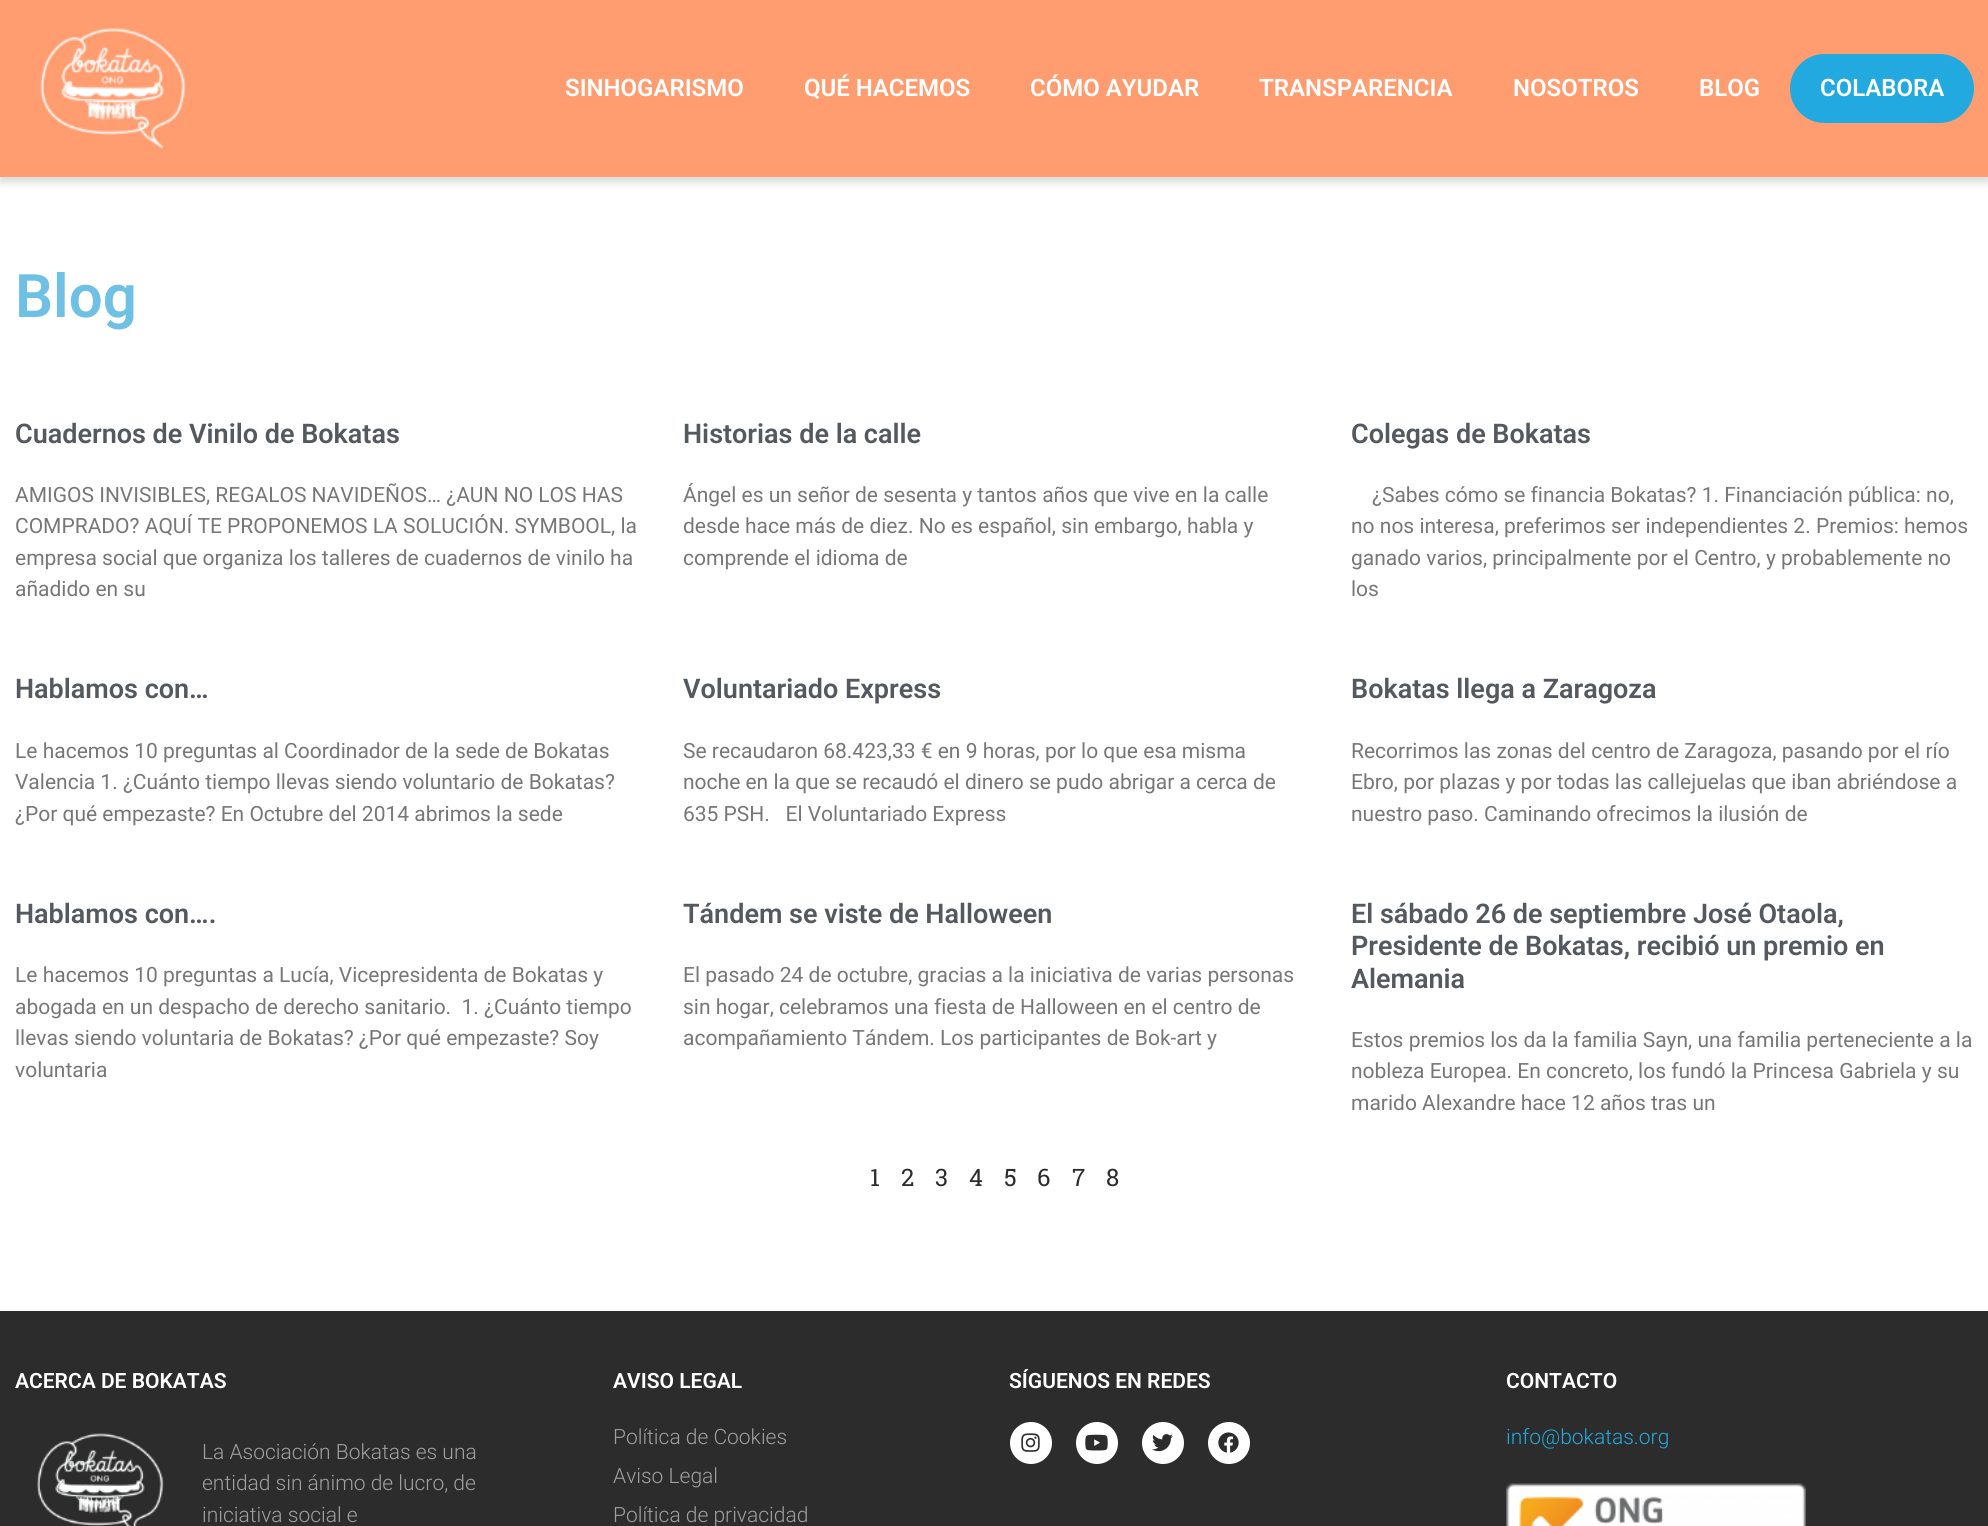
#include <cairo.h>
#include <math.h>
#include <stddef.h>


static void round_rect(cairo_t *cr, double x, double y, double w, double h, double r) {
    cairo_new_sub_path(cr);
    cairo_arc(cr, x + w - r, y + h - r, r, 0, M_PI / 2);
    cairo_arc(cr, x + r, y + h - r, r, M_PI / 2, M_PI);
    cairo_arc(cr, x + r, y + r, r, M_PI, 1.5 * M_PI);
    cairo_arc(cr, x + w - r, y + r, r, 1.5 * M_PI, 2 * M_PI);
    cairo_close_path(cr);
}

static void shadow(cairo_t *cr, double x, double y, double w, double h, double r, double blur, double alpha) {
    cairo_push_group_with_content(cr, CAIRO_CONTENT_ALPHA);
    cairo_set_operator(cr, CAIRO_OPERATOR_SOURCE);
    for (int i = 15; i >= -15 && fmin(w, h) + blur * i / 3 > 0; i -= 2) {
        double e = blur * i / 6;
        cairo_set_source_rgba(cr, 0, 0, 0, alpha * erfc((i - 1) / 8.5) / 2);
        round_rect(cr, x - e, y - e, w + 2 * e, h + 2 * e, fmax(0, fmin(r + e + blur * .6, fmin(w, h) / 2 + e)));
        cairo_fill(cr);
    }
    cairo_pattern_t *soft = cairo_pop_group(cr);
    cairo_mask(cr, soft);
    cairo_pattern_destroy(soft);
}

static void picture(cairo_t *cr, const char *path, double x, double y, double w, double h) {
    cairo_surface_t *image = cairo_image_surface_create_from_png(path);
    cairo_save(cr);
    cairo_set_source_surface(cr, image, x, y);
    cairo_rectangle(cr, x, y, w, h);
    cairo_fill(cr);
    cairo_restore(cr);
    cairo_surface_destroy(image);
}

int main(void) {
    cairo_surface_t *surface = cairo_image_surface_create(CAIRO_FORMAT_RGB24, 1988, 1526);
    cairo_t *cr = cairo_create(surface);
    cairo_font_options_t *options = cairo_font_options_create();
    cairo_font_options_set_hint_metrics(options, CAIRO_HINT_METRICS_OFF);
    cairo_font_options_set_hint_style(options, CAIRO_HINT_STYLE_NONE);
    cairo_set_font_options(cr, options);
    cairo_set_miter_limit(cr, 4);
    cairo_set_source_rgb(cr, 1, 1, 1);
    cairo_paint(cr);
    cairo_set_source_rgb(cr, 0, 0, 0);
    shadow(cr, 0, 5, 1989, 177, 0, 4.5, 0.16);
    cairo_set_source_rgb(cr, 1, 0.616, 0.443);
    cairo_rectangle(cr, 0, 0, 1988, 177);
    cairo_fill(cr);
    picture(cr, "img1.png", 40, 28, 146, 121);
    cairo_select_font_face(cr, "Roboto SemiBold", CAIRO_FONT_SLANT_NORMAL, CAIRO_FONT_WEIGHT_NORMAL);
    cairo_set_font_size(cr, 24);
    cairo_set_source_rgb(cr, 1, 1, 1);
    cairo_move_to(cr, 565, 96);
    cairo_show_text(cr, "SINHOGARISMO");
    cairo_move_to(cr, 804, 96);
    cairo_show_text(cr, "QUÉ HACEMOS");
    cairo_move_to(cr, 1030, 96);
    cairo_show_text(cr, "CÓMO AYUDAR");
    cairo_move_to(cr, 1259, 96);
    cairo_show_text(cr, "TRANSPARENCIA");
    cairo_move_to(cr, 1513, 96);
    cairo_show_text(cr, "NOSOTROS");
    cairo_move_to(cr, 1699, 96);
    cairo_show_text(cr, "BLOG");
    cairo_set_source_rgb(cr, 0.133, 0.663, 0.875);
    round_rect(cr, 1790, 54, 184, 69, 34.5);
    cairo_fill(cr);
    cairo_set_source_rgb(cr, 1, 1, 1);
    cairo_move_to(cr, 1820, 96);
    cairo_show_text(cr, "COLABORA");
    cairo_set_font_size(cr, 60);
    cairo_set_source_rgb(cr, 0.431, 0.757, 0.894);
    cairo_move_to(cr, 15, 317);
    cairo_show_text(cr, "Blog");
    cairo_set_font_size(cr, 27);
    cairo_set_source_rgb(cr, 0.329, 0.349, 0.373);
    cairo_move_to(cr, 15, 443);
    cairo_show_text(cr, "Cuadernos de Vinilo de Bokatas");
    cairo_select_font_face(cr, "Roboto", CAIRO_FONT_SLANT_NORMAL, CAIRO_FONT_WEIGHT_NORMAL);
    cairo_set_font_size(cr, 21);
    cairo_set_source_rgb(cr, 0.467, 0.467, 0.467);
    cairo_move_to(cr, 15, 502);
    cairo_show_text(cr, "AMIGOS INVISIBLES, REGALOS NAVIDEÑOS… ¿AUN NO LOS HAS");
    cairo_move_to(cr, 15, 533);
    cairo_show_text(cr, "COMPRADO? AQUÍ TE PROPONEMOS LA SOLUCIÓN. SYMBOOL, la");
    cairo_move_to(cr, 15, 565);
    cairo_show_text(cr, "empresa social que organiza los talleres de cuadernos de vinilo ha");
    cairo_move_to(cr, 15, 596);
    cairo_show_text(cr, "añadido en su");
    cairo_select_font_face(cr, "Roboto SemiBold", CAIRO_FONT_SLANT_NORMAL, CAIRO_FONT_WEIGHT_NORMAL);
    cairo_set_font_size(cr, 27);
    cairo_set_source_rgb(cr, 0.329, 0.349, 0.373);
    cairo_move_to(cr, 683, 443);
    cairo_show_text(cr, "Historias de la calle");
    cairo_select_font_face(cr, "Roboto", CAIRO_FONT_SLANT_NORMAL, CAIRO_FONT_WEIGHT_NORMAL);
    cairo_set_font_size(cr, 21);
    cairo_set_source_rgb(cr, 0.467, 0.467, 0.467);
    cairo_move_to(cr, 683, 502);
    cairo_show_text(cr, "Ángel es un señor de sesenta y tantos años que vive en la calle");
    cairo_move_to(cr, 683, 533);
    cairo_show_text(cr, "desde hace más de diez. No es español, sin embargo, habla y");
    cairo_move_to(cr, 683, 565);
    cairo_show_text(cr, "comprende el idioma de");
    cairo_select_font_face(cr, "Roboto SemiBold", CAIRO_FONT_SLANT_NORMAL, CAIRO_FONT_WEIGHT_NORMAL);
    cairo_set_font_size(cr, 27);
    cairo_set_source_rgb(cr, 0.329, 0.349, 0.373);
    cairo_move_to(cr, 1351, 443);
    cairo_show_text(cr, "Colegas de Bokatas");
    cairo_select_font_face(cr, "Roboto", CAIRO_FONT_SLANT_NORMAL, CAIRO_FONT_WEIGHT_NORMAL);
    cairo_set_font_size(cr, 21);
    cairo_set_source_rgb(cr, 0.467, 0.467, 0.467);
    cairo_move_to(cr, 1372, 502);
    cairo_show_text(cr, "¿Sabes cómo se financia Bokatas? 1. Financiación pública: no,");
    cairo_move_to(cr, 1351, 533);
    cairo_show_text(cr, "no nos interesa, preferimos ser independientes 2. Premios: hemos");
    cairo_move_to(cr, 1351, 565);
    cairo_show_text(cr, "ganado varios, principalmente por el Centro, y probablemente no");
    cairo_move_to(cr, 1351, 596);
    cairo_show_text(cr, "los");
    cairo_select_font_face(cr, "Roboto SemiBold", CAIRO_FONT_SLANT_NORMAL, CAIRO_FONT_WEIGHT_NORMAL);
    cairo_set_font_size(cr, 27);
    cairo_set_source_rgb(cr, 0.329, 0.349, 0.373);
    cairo_move_to(cr, 15, 698);
    cairo_show_text(cr, "Hablamos con…");
    cairo_select_font_face(cr, "Roboto", CAIRO_FONT_SLANT_NORMAL, CAIRO_FONT_WEIGHT_NORMAL);
    cairo_set_font_size(cr, 21);
    cairo_set_source_rgb(cr, 0.467, 0.467, 0.467);
    cairo_move_to(cr, 15, 758);
    cairo_show_text(cr, "Le hacemos 10 preguntas al Coordinador de la sede de Bokatas");
    cairo_move_to(cr, 15, 789);
    cairo_show_text(cr, "Valencia 1. ¿Cuánto tiempo llevas siendo voluntario de Bokatas?");
    cairo_move_to(cr, 15, 821);
    cairo_show_text(cr, "¿Por qué empezaste? En Octubre del 2014 abrimos la sede");
    cairo_select_font_face(cr, "Roboto SemiBold", CAIRO_FONT_SLANT_NORMAL, CAIRO_FONT_WEIGHT_NORMAL);
    cairo_set_font_size(cr, 27);
    cairo_set_source_rgb(cr, 0.329, 0.349, 0.373);
    cairo_move_to(cr, 683, 698);
    cairo_show_text(cr, "Voluntariado Express");
    cairo_select_font_face(cr, "Roboto", CAIRO_FONT_SLANT_NORMAL, CAIRO_FONT_WEIGHT_NORMAL);
    cairo_set_font_size(cr, 21);
    cairo_set_source_rgb(cr, 0.467, 0.467, 0.467);
    cairo_move_to(cr, 683, 758);
    cairo_show_text(cr, "Se recaudaron 68.423,33 € en 9 horas, por lo que esa misma");
    cairo_move_to(cr, 683, 789);
    cairo_show_text(cr, "noche en la que se recaudó el dinero se pudo abrigar a cerca de");
    cairo_move_to(cr, 683, 821);
    cairo_show_text(cr, "635 PSH.   El Voluntariado Express");
    cairo_select_font_face(cr, "Roboto SemiBold", CAIRO_FONT_SLANT_NORMAL, CAIRO_FONT_WEIGHT_NORMAL);
    cairo_set_font_size(cr, 27);
    cairo_set_source_rgb(cr, 0.329, 0.349, 0.373);
    cairo_move_to(cr, 1351, 698);
    cairo_show_text(cr, "Bokatas llega a Zaragoza");
    cairo_select_font_face(cr, "Roboto", CAIRO_FONT_SLANT_NORMAL, CAIRO_FONT_WEIGHT_NORMAL);
    cairo_set_font_size(cr, 21);
    cairo_set_source_rgb(cr, 0.467, 0.467, 0.467);
    cairo_move_to(cr, 1351, 758);
    cairo_show_text(cr, "Recorrimos las zonas del centro de Zaragoza, pasando por el río");
    cairo_move_to(cr, 1351, 789);
    cairo_show_text(cr, "Ebro, por plazas y por todas las callejuelas que iban abriéndose a");
    cairo_move_to(cr, 1351, 821);
    cairo_show_text(cr, "nuestro paso. Caminando ofrecimos la ilusión de");
    cairo_select_font_face(cr, "Roboto SemiBold", CAIRO_FONT_SLANT_NORMAL, CAIRO_FONT_WEIGHT_NORMAL);
    cairo_set_font_size(cr, 27);
    cairo_set_source_rgb(cr, 0.329, 0.349, 0.373);
    cairo_move_to(cr, 15, 923);
    cairo_show_text(cr, "Hablamos con….");
    cairo_select_font_face(cr, "Roboto", CAIRO_FONT_SLANT_NORMAL, CAIRO_FONT_WEIGHT_NORMAL);
    cairo_set_font_size(cr, 21);
    cairo_set_source_rgb(cr, 0.467, 0.467, 0.467);
    cairo_move_to(cr, 15, 982);
    cairo_show_text(cr, "Le hacemos 10 preguntas a Lucía, Vicepresidenta de Bokatas y");
    cairo_move_to(cr, 15, 1014);
    cairo_show_text(cr, "abogada en un despacho de derecho sanitario.  1. ¿Cuánto tiempo");
    cairo_move_to(cr, 15, 1045);
    cairo_show_text(cr, "llevas siendo voluntaria de Bokatas? ¿Por qué empezaste? Soy");
    cairo_move_to(cr, 15, 1077);
    cairo_show_text(cr, "voluntaria");
    cairo_select_font_face(cr, "Roboto SemiBold", CAIRO_FONT_SLANT_NORMAL, CAIRO_FONT_WEIGHT_NORMAL);
    cairo_set_font_size(cr, 27);
    cairo_set_source_rgb(cr, 0.329, 0.349, 0.373);
    cairo_move_to(cr, 683, 923);
    cairo_show_text(cr, "Tándem se viste de Halloween");
    cairo_select_font_face(cr, "Roboto", CAIRO_FONT_SLANT_NORMAL, CAIRO_FONT_WEIGHT_NORMAL);
    cairo_set_font_size(cr, 21);
    cairo_set_source_rgb(cr, 0.467, 0.467, 0.467);
    cairo_move_to(cr, 683, 982);
    cairo_show_text(cr, "El pasado 24 de octubre, gracias a la iniciativa de varias personas");
    cairo_move_to(cr, 683, 1014);
    cairo_show_text(cr, "sin hogar, celebramos una fiesta de Halloween en el centro de");
    cairo_move_to(cr, 683, 1045);
    cairo_show_text(cr, "acompañamiento Tándem. Los participantes de Bok-art y");
    cairo_select_font_face(cr, "Roboto SemiBold", CAIRO_FONT_SLANT_NORMAL, CAIRO_FONT_WEIGHT_NORMAL);
    cairo_set_font_size(cr, 27);
    cairo_set_source_rgb(cr, 0.329, 0.349, 0.373);
    cairo_move_to(cr, 1351, 923);
    cairo_show_text(cr, "El sábado 26 de septiembre José Otaola,");
    cairo_move_to(cr, 1351, 955);
    cairo_show_text(cr, "Presidente de Bokatas, recibió un premio en");
    cairo_move_to(cr, 1351, 988);
    cairo_show_text(cr, "Alemania");
    cairo_select_font_face(cr, "Roboto", CAIRO_FONT_SLANT_NORMAL, CAIRO_FONT_WEIGHT_NORMAL);
    cairo_set_font_size(cr, 21);
    cairo_set_source_rgb(cr, 0.467, 0.467, 0.467);
    cairo_move_to(cr, 1351, 1047);
    cairo_show_text(cr, "Estos premios los da la familia Sayn, una familia perteneciente a la");
    cairo_move_to(cr, 1351, 1078);
    cairo_show_text(cr, "nobleza Europea. En concreto, los fundó la Princesa Gabriela y su");
    cairo_move_to(cr, 1351, 1110);
    cairo_show_text(cr, "marido Alexandre hace 12 años tras un");
    cairo_select_font_face(cr, "Roboto Slab", CAIRO_FONT_SLANT_NORMAL, CAIRO_FONT_WEIGHT_NORMAL);
    cairo_set_font_size(cr, 24);
    cairo_set_source_rgb(cr, 0.173, 0.173, 0.173);
    cairo_move_to(cr, 870, 1186);
    cairo_show_text(cr, "1");
    cairo_move_to(cr, 901, 1186);
    cairo_show_text(cr, "2");
    cairo_move_to(cr, 935, 1186);
    cairo_show_text(cr, "3");
    cairo_move_to(cr, 969, 1186);
    cairo_show_text(cr, "4");
    cairo_move_to(cr, 1004, 1186);
    cairo_show_text(cr, "5");
    cairo_move_to(cr, 1037, 1186);
    cairo_show_text(cr, "6");
    cairo_move_to(cr, 1072, 1186);
    cairo_show_text(cr, "7");
    cairo_move_to(cr, 1106, 1186);
    cairo_show_text(cr, "8");
    cairo_rectangle(cr, 0, 1311, 1988, 215);
    cairo_fill(cr);
    cairo_select_font_face(cr, "Roboto SemiBold", CAIRO_FONT_SLANT_NORMAL, CAIRO_FONT_WEIGHT_NORMAL);
    cairo_set_font_size(cr, 21);
    cairo_set_source_rgb(cr, 1, 1, 1);
    cairo_move_to(cr, 15, 1388);
    cairo_show_text(cr, "ACERCA DE BOKATAS");
    picture(cr, "img2.png", 37, 1433, 127, 93);
    cairo_select_font_face(cr, "Roboto Light", CAIRO_FONT_SLANT_NORMAL, CAIRO_FONT_WEIGHT_NORMAL);
    cairo_set_source_rgb(cr, 0.627, 0.627, 0.627);
    cairo_move_to(cr, 202, 1459);
    cairo_show_text(cr, "La Asociación Bokatas es una");
    cairo_move_to(cr, 202, 1490);
    cairo_show_text(cr, "entidad sin ánimo de lucro, de");
    cairo_move_to(cr, 202, 1522);
    cairo_show_text(cr, "iniciativa social e");
    cairo_select_font_face(cr, "Roboto SemiBold", CAIRO_FONT_SLANT_NORMAL, CAIRO_FONT_WEIGHT_NORMAL);
    cairo_set_source_rgb(cr, 1, 1, 1);
    cairo_move_to(cr, 613, 1388);
    cairo_show_text(cr, "AVISO LEGAL");
    cairo_select_font_face(cr, "Roboto Light", CAIRO_FONT_SLANT_NORMAL, CAIRO_FONT_WEIGHT_NORMAL);
    cairo_set_source_rgb(cr, 0.627, 0.627, 0.627);
    cairo_move_to(cr, 613, 1444);
    cairo_show_text(cr, "Política de Cookies");
    cairo_move_to(cr, 613, 1483);
    cairo_show_text(cr, "Aviso Legal");
    cairo_move_to(cr, 613, 1522);
    cairo_show_text(cr, "Política de privacidad");
    cairo_select_font_face(cr, "Roboto SemiBold", CAIRO_FONT_SLANT_NORMAL, CAIRO_FONT_WEIGHT_NORMAL);
    cairo_set_source_rgb(cr, 1, 1, 1);
    cairo_move_to(cr, 1009, 1388);
    cairo_show_text(cr, "SÍGUENOS EN REDES");
    cairo_new_path(cr);
    cairo_arc(cr, 1031, 1443, 21, 0, 2 * M_PI);
    cairo_fill(cr);
    picture(cr, "img3.png", 1021, 1433, 19, 19);
    cairo_arc(cr, 1097, 1443, 21, 0, 2 * M_PI);
    cairo_fill(cr);
    picture(cr, "img4.png", 1085, 1434, 23, 17);
    cairo_arc(cr, 1163, 1443, 21, 0, 2 * M_PI);
    cairo_fill(cr);
    picture(cr, "img5.png", 1152, 1434, 21, 18);
    cairo_arc(cr, 1229, 1443, 21, 0, 2 * M_PI);
    cairo_fill(cr);
    picture(cr, "img6.png", 1218, 1432, 21, 21);
    cairo_move_to(cr, 1506, 1388);
    cairo_show_text(cr, "CONTACTO");
    cairo_select_font_face(cr, "Roboto Light", CAIRO_FONT_SLANT_NORMAL, CAIRO_FONT_WEIGHT_NORMAL);
    cairo_set_source_rgb(cr, 0.133, 0.663, 0.875);
    cairo_move_to(cr, 1506, 1444);
    cairo_show_text(cr, "info@bokatas.org");
    picture(cr, "img7.png", 1506, 1483, 300, 43);
    cairo_surface_write_to_png(surface, "page.png");
    cairo_font_options_destroy(options);
    cairo_destroy(cr);
    cairo_surface_destroy(surface);
    return 0;
}
